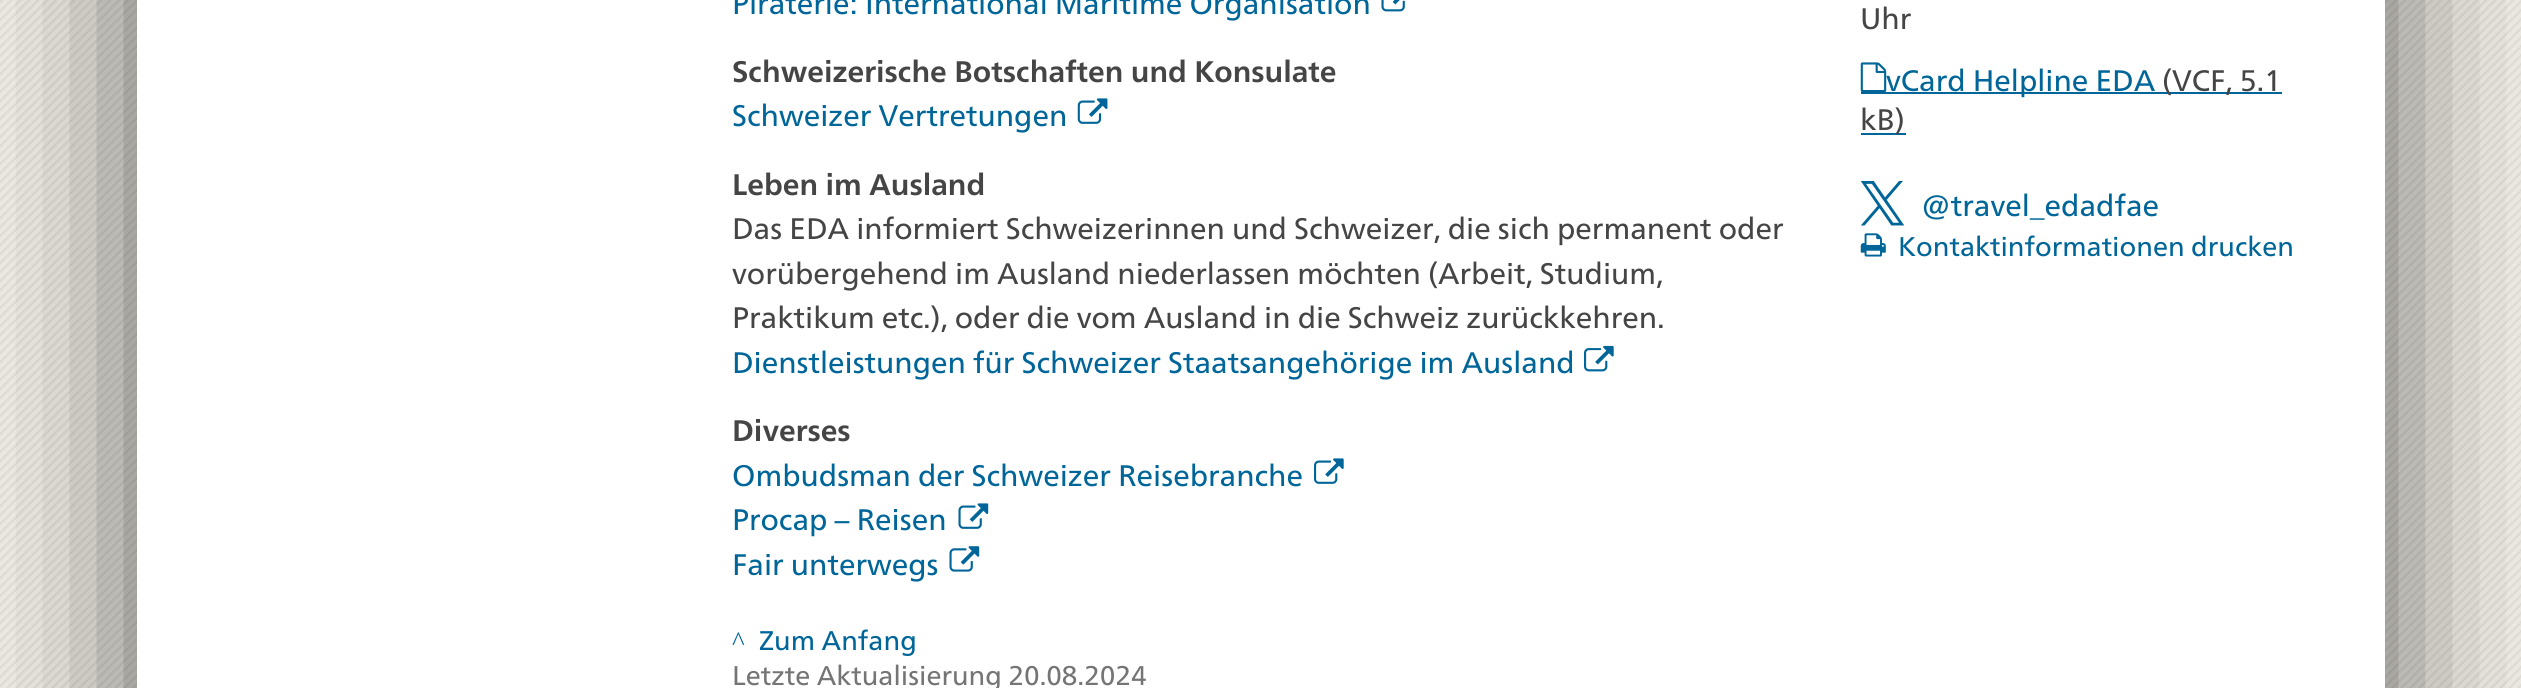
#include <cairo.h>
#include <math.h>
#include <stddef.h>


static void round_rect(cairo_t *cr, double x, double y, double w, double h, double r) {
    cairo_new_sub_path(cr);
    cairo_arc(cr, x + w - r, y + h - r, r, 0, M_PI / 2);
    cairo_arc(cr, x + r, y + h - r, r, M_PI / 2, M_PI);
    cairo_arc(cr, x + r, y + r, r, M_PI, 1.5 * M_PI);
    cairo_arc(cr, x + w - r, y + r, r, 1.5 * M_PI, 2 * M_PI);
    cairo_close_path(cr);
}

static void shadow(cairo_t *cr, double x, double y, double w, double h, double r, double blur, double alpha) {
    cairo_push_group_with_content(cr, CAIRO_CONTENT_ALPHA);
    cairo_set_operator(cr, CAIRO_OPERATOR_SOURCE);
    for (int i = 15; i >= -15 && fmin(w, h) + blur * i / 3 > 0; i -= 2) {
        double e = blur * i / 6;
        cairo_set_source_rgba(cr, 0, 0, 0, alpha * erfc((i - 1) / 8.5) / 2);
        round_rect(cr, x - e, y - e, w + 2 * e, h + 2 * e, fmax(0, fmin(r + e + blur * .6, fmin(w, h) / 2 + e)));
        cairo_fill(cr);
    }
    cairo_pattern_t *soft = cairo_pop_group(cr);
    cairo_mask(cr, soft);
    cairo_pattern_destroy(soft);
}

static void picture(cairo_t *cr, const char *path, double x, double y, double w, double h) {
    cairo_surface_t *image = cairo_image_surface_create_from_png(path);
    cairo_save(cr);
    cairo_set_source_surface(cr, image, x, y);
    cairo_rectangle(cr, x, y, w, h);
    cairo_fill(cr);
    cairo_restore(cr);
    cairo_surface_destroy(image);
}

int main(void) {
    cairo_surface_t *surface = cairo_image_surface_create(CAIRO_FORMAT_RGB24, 2521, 688);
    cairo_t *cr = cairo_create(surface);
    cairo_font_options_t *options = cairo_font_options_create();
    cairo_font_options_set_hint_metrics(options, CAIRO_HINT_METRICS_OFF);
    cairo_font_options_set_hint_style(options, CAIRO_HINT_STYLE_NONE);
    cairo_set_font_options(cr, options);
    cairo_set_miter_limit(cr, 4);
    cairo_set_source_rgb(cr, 1, 1, 1);
    cairo_paint(cr);
    picture(cr, "img1.png", 0, 0, 2521, 688);
    cairo_set_source_rgb(cr, 0, 0, 0);
    shadow(cr, 137, -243, 2248, 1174, 0, 81, 0.6);
    cairo_set_source_rgb(cr, 1, 1, 1);
    cairo_rectangle(cr, 137, 0, 2248, 688);
    cairo_fill(cr);
    cairo_select_font_face(cr, "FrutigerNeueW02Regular", CAIRO_FONT_SLANT_NORMAL, CAIRO_FONT_WEIGHT_NORMAL);
    cairo_set_font_size(cr, 29.7);
    cairo_set_source_rgb(cr, 0, 0.4, 0.6);
    cairo_move_to(cr, 732, 14);
    cairo_show_text(cr, "Piraterie: International Maritime Organisation");
    picture(cr, "img2.png", 1381, 0, 24, 12);
    cairo_select_font_face(cr, "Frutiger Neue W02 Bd", CAIRO_FONT_SLANT_NORMAL, CAIRO_FONT_WEIGHT_BOLD);
    cairo_set_source_rgb(cr, 0.271, 0.271, 0.271);
    cairo_move_to(cr, 732, 82);
    cairo_show_text(cr, "Schweizerische Botschaften und Konsulate");
    cairo_select_font_face(cr, "FrutigerNeueW02Regular", CAIRO_FONT_SLANT_NORMAL, CAIRO_FONT_WEIGHT_NORMAL);
    cairo_set_source_rgb(cr, 0, 0.4, 0.6);
    cairo_move_to(cr, 732, 126);
    cairo_show_text(cr, "Schweizer Vertretungen");
    picture(cr, "img3.png", 1077, 98, 31, 26);
    cairo_select_font_face(cr, "Frutiger Neue W02 Bd", CAIRO_FONT_SLANT_NORMAL, CAIRO_FONT_WEIGHT_BOLD);
    cairo_set_source_rgb(cr, 0.271, 0.271, 0.271);
    cairo_move_to(cr, 732, 195);
    cairo_show_text(cr, "Leben im Ausland");
    cairo_select_font_face(cr, "FrutigerNeueW02Regular", CAIRO_FONT_SLANT_NORMAL, CAIRO_FONT_WEIGHT_NORMAL);
    cairo_move_to(cr, 732, 239);
    cairo_show_text(cr, "Das EDA informiert Schweizerinnen und Schweizer, die sich permanent oder");
    cairo_move_to(cr, 732, 284);
    cairo_show_text(cr, "vorübergehend im Ausland niederlassen möchten (Arbeit, Studium,");
    cairo_move_to(cr, 732, 328);
    cairo_show_text(cr, "Praktikum etc.), oder die vom Ausland in die Schweiz zurückkehren.");
    cairo_set_source_rgb(cr, 0, 0.4, 0.6);
    cairo_move_to(cr, 732, 373);
    cairo_show_text(cr, "Dienstleistungen für Schweizer Staatsangehörige im Ausland");
    picture(cr, "img4.png", 1584, 345, 30, 27);
    cairo_select_font_face(cr, "Frutiger Neue W02 Bd", CAIRO_FONT_SLANT_NORMAL, CAIRO_FONT_WEIGHT_BOLD);
    cairo_set_source_rgb(cr, 0.271, 0.271, 0.271);
    cairo_move_to(cr, 732, 441);
    cairo_show_text(cr, "Diverses");
    cairo_select_font_face(cr, "FrutigerNeueW02Regular", CAIRO_FONT_SLANT_NORMAL, CAIRO_FONT_WEIGHT_NORMAL);
    cairo_set_source_rgb(cr, 0, 0.4, 0.6);
    cairo_move_to(cr, 732, 486);
    cairo_show_text(cr, "Ombudsman der Schweizer Reisebranche");
    picture(cr, "img5.png", 1314, 458, 30, 26);
    cairo_move_to(cr, 732, 530);
    cairo_show_text(cr, "Procap – Reisen");
    picture(cr, "img6.png", 958, 503, 31, 26);
    cairo_move_to(cr, 732, 575);
    cairo_show_text(cr, "Fair unterwegs");
    picture(cr, "img7.png", 949, 546, 31, 26);
    cairo_select_font_face(cr, "Liberation Serif", CAIRO_FONT_SLANT_NORMAL, CAIRO_FONT_WEIGHT_NORMAL);
    cairo_set_font_size(cr, 27);
    cairo_move_to(cr, 732, 650);
    cairo_show_text(cr, "^");
    cairo_select_font_face(cr, "FrutigerNeueW02Regular", CAIRO_FONT_SLANT_NORMAL, CAIRO_FONT_WEIGHT_NORMAL);
    cairo_move_to(cr, 759, 650);
    cairo_show_text(cr, "Zum Anfang");
    cairo_set_source_rgb(cr, 0.459, 0.459, 0.459);
    cairo_move_to(cr, 732, 685);
    cairo_show_text(cr, "Letzte Aktualisierung 20.08.2024");
    cairo_set_font_size(cr, 29.7);
    cairo_set_source_rgb(cr, 0.271, 0.271, 0.271);
    cairo_move_to(cr, 1860, 29);
    cairo_show_text(cr, "Uhr");
    picture(cr, "img8.png", 1860, 62, 27, 30);
    cairo_set_source_rgb(cr, 0, 0.4, 0.6);
    cairo_rectangle(cr, 1861, 92, 421, 2);
    cairo_fill(cr);
    cairo_move_to(cr, 1886, 91);
    cairo_show_text(cr, "vCard Helpline EDA");
    cairo_set_source_rgb(cr, 0.271, 0.271, 0.271);
    cairo_move_to(cr, 2162, 91);
    cairo_show_text(cr, "(VCF, 5.1");
    cairo_set_source_rgb(cr, 0, 0.4, 0.6);
    cairo_rectangle(cr, 1861, 133, 45, 2);
    cairo_fill(cr);
    cairo_set_source_rgb(cr, 0.271, 0.271, 0.271);
    cairo_move_to(cr, 1860, 130);
    cairo_show_text(cr, "kB)");
    picture(cr, "img9.png", 1860, 181, 45, 45);
    cairo_set_source_rgb(cr, 0, 0.4, 0.6);
    cairo_move_to(cr, 1921, 216);
    cairo_show_text(cr, "@travel_edadfae");
    picture(cr, "img10.png", 1860, 233, 26, 24);
    cairo_set_font_size(cr, 27);
    cairo_move_to(cr, 1898, 256);
    cairo_show_text(cr, "Kontaktinformationen drucken");
    cairo_surface_write_to_png(surface, "page.png");
    cairo_font_options_destroy(options);
    cairo_destroy(cr);
    cairo_surface_destroy(surface);
    return 0;
}
